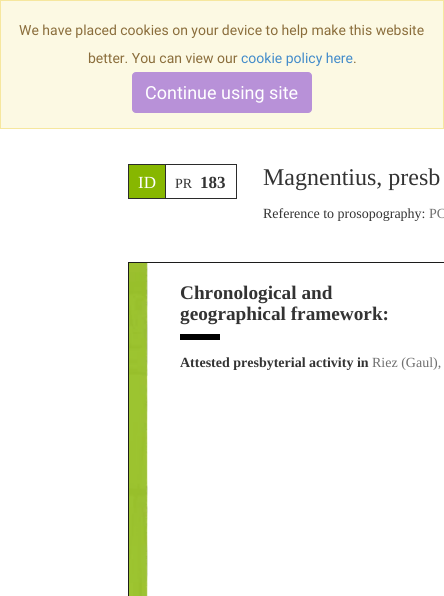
#include <cairo.h>
#include <math.h>
#include <stddef.h>


static void round_rect(cairo_t *cr, double x, double y, double w, double h, double r) {
    cairo_new_sub_path(cr);
    cairo_arc(cr, x + w - r, y + h - r, r, 0, M_PI / 2);
    cairo_arc(cr, x + r, y + h - r, r, M_PI / 2, M_PI);
    cairo_arc(cr, x + r, y + r, r, M_PI, 1.5 * M_PI);
    cairo_arc(cr, x + w - r, y + r, r, 1.5 * M_PI, 2 * M_PI);
    cairo_close_path(cr);
}

static void picture(cairo_t *cr, const char *path, double x, double y, double w, double h) {
    cairo_surface_t *image = cairo_image_surface_create_from_png(path);
    cairo_save(cr);
    cairo_set_source_surface(cr, image, x, y);
    cairo_rectangle(cr, x, y, w, h);
    cairo_fill(cr);
    cairo_restore(cr);
    cairo_surface_destroy(image);
}

int main(void) {
    cairo_surface_t *surface = cairo_image_surface_create(CAIRO_FORMAT_RGB24, 444, 596);
    cairo_t *cr = cairo_create(surface);
    cairo_font_options_t *options = cairo_font_options_create();
    cairo_font_options_set_hint_metrics(options, CAIRO_HINT_METRICS_OFF);
    cairo_font_options_set_hint_style(options, CAIRO_HINT_STYLE_NONE);
    cairo_set_font_options(cr, options);
    cairo_set_miter_limit(cr, 4);
    cairo_set_source_rgb(cr, 1, 1, 1);
    cairo_paint(cr);
    cairo_set_source_rgb(cr, 0.988, 0.973, 0.89);
    cairo_rectangle(cr, 0.5, 0.5, 443, 128);
    cairo_fill_preserve(cr);
    cairo_set_source_rgb(cr, 0.961, 0.906, 0.62);
    cairo_set_line_width(cr, 1);
    cairo_stroke(cr);
    cairo_select_font_face(cr, "Roboto", CAIRO_FONT_SLANT_NORMAL, CAIRO_FONT_WEIGHT_NORMAL);
    cairo_set_font_size(cr, 14);
    cairo_set_source_rgb(cr, 0.541, 0.427, 0.231);
    cairo_move_to(cr, 19, 35);
    cairo_show_text(cr, "We have placed cookies on your device to help make this website");
    cairo_move_to(cr, 88, 63);
    cairo_show_text(cr, "better. You can view our");
    cairo_set_source_rgb(cr, 0.259, 0.545, 0.792);
    cairo_move_to(cr, 241, 63);
    cairo_show_text(cr, "cookie policy here");
    cairo_set_source_rgb(cr, 0.541, 0.427, 0.231);
    cairo_move_to(cr, 353, 63);
    cairo_show_text(cr, ".");
    cairo_set_source_rgb(cr, 0.722, 0.569, 0.847);
    round_rect(cr, 132.5, 72.5, 179, 40, 3.5);
    cairo_fill_preserve(cr);
    cairo_stroke(cr);
    cairo_set_font_size(cr, 18);
    cairo_set_source_rgb(cr, 1, 1, 1);
    cairo_move_to(cr, 145, 99);
    cairo_show_text(cr, "Continue using site");
    cairo_rectangle(cr, 128.5, 164.5, 108, 34);
    cairo_set_source_rgb(cr, 0.169, 0.169, 0.169);
    cairo_stroke(cr);
    cairo_set_source_rgb(cr, 0.529, 0.718, 0);
    cairo_rectangle(cr, 129, 165, 36, 33);
    cairo_fill(cr);
    cairo_set_source_rgb(cr, 0.169, 0.169, 0.169);
    cairo_rectangle(cr, 165, 165, 1, 33);
    cairo_fill(cr);
    cairo_select_font_face(cr, "Liberation Serif", CAIRO_FONT_SLANT_NORMAL, CAIRO_FONT_WEIGHT_NORMAL);
    cairo_set_font_size(cr, 17);
    cairo_set_source_rgb(cr, 1, 1, 1);
    cairo_move_to(cr, 138, 188);
    cairo_show_text(cr, "ID");
    cairo_set_font_size(cr, 14);
    cairo_set_source_rgb(cr, 0.2, 0.2, 0.2);
    cairo_move_to(cr, 175, 188);
    cairo_show_text(cr, "PR");
    cairo_select_font_face(cr, "Liberation Serif", CAIRO_FONT_SLANT_NORMAL, CAIRO_FONT_WEIGHT_BOLD);
    cairo_set_font_size(cr, 17);
    cairo_move_to(cr, 200, 188);
    cairo_show_text(cr, "183");
    cairo_select_font_face(cr, "Liberation Serif", CAIRO_FONT_SLANT_NORMAL, CAIRO_FONT_WEIGHT_NORMAL);
    cairo_set_font_size(cr, 24);
    cairo_move_to(cr, 263, 185);
    cairo_show_text(cr, "Magnentius, presb");
    cairo_set_font_size(cr, 14);
    cairo_move_to(cr, 263, 218);
    cairo_show_text(cr, "Reference to prosopography:");
    cairo_set_source_rgb(cr, 0.435, 0.435, 0.435);
    cairo_move_to(cr, 429, 218);
    cairo_show_text(cr, "PC");
    cairo_rectangle(cr, 128.5, 262.5, 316, 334);
    cairo_set_source_rgb(cr, 0.11, 0.11, 0.106);
    cairo_stroke(cr);
    picture(cr, "img1.png", 129, 263, 19, 333);
    cairo_select_font_face(cr, "Liberation Serif", CAIRO_FONT_SLANT_NORMAL, CAIRO_FONT_WEIGHT_BOLD);
    cairo_set_font_size(cr, 19.25);
    cairo_set_source_rgb(cr, 0.2, 0.2, 0.2);
    cairo_move_to(cr, 180, 299);
    cairo_show_text(cr, "Chronological and");
    cairo_move_to(cr, 180, 320);
    cairo_show_text(cr, "geographical framework:");
    cairo_set_source_rgb(cr, 0, 0, 0);
    cairo_rectangle(cr, 180, 334, 40, 6);
    cairo_fill(cr);
    cairo_set_font_size(cr, 14);
    cairo_set_source_rgb(cr, 0.2, 0.2, 0.2);
    cairo_move_to(cr, 180, 367);
    cairo_show_text(cr, "Attested presbyterial activity in");
    cairo_select_font_face(cr, "Liberation Serif", CAIRO_FONT_SLANT_NORMAL, CAIRO_FONT_WEIGHT_NORMAL);
    cairo_set_source_rgb(cr, 0.435, 0.435, 0.435);
    cairo_move_to(cr, 372, 367);
    cairo_show_text(cr, "Riez (Gaul),");
    cairo_surface_write_to_png(surface, "page.png");
    cairo_font_options_destroy(options);
    cairo_destroy(cr);
    cairo_surface_destroy(surface);
    return 0;
}
